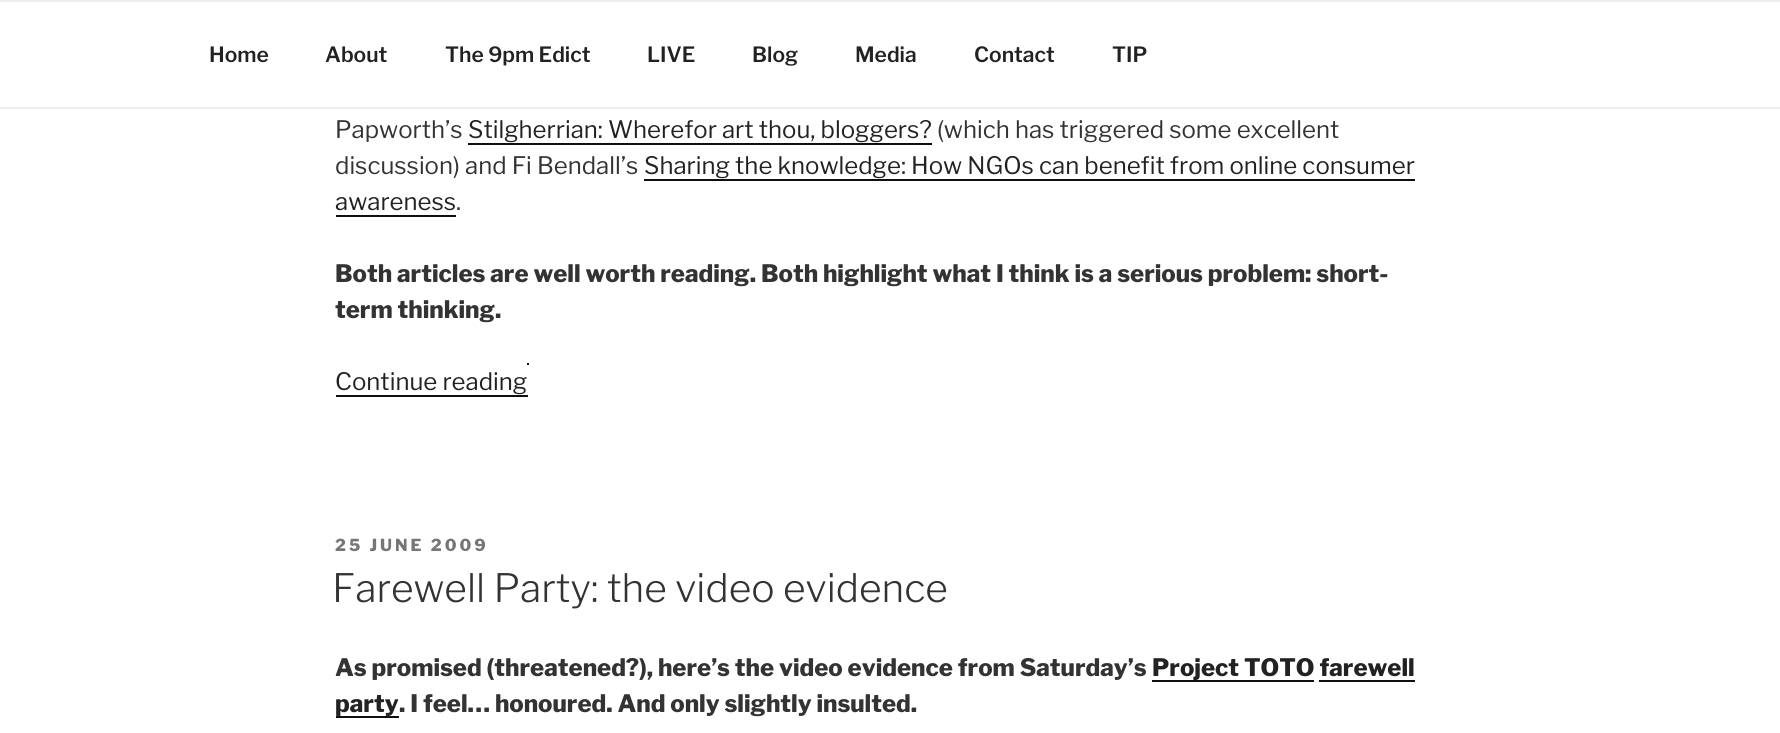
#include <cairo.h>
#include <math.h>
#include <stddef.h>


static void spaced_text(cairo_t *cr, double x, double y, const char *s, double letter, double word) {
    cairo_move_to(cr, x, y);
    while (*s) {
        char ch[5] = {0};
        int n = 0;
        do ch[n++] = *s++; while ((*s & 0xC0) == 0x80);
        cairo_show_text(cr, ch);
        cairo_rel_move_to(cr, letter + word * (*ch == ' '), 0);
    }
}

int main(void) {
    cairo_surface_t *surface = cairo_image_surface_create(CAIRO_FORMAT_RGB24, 1780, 733);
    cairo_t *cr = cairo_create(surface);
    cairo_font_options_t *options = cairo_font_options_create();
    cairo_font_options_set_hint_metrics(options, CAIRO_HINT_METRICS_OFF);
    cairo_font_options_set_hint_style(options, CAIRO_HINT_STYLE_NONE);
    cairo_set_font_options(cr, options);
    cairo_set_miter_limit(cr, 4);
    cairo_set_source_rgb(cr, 1, 1, 1);
    cairo_paint(cr);
    cairo_set_source_rgb(cr, 0.933, 0.933, 0.933);
    cairo_rectangle(cr, 0, 0, 1780, 2);
    cairo_fill(cr);
    cairo_rectangle(cr, 0, 107, 1780, 2);
    cairo_fill(cr);
    cairo_select_font_face(cr, "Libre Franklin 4 Thin", CAIRO_FONT_SLANT_NORMAL, CAIRO_FONT_WEIGHT_NORMAL);
    cairo_set_font_size(cr, 21);
    cairo_set_source_rgb(cr, 0.133, 0.133, 0.133);
    cairo_move_to(cr, 209, 62);
    cairo_show_text(cr, "Home");
    cairo_move_to(cr, 325, 62);
    cairo_show_text(cr, "About");
    cairo_move_to(cr, 445, 62);
    cairo_show_text(cr, "The 9pm Edict");
    cairo_move_to(cr, 647, 62);
    cairo_show_text(cr, "LIVE");
    cairo_move_to(cr, 752, 62);
    cairo_show_text(cr, "Blog");
    cairo_move_to(cr, 855, 62);
    cairo_show_text(cr, "Media");
    cairo_move_to(cr, 974, 62);
    cairo_show_text(cr, "Contact");
    cairo_move_to(cr, 1112, 62);
    cairo_show_text(cr, "TIP");
    cairo_select_font_face(cr, "Libre Franklin Thin", CAIRO_FONT_SLANT_NORMAL, CAIRO_FONT_WEIGHT_NORMAL);
    cairo_set_font_size(cr, 24);
    cairo_set_source_rgb(cr, 0.2, 0.2, 0.2);
    cairo_move_to(cr, 335, 138);
    cairo_show_text(cr, "Papworth’s");
    cairo_set_source_rgb(cr, 0.133, 0.133, 0.133);
    cairo_move_to(cr, 468, 138);
    cairo_show_text(cr, "Stilgherrian: Wherefor art thou, bloggers?");
    cairo_set_source_rgb(cr, 0.059, 0.059, 0.059);
    cairo_rectangle(cr, 468, 143, 464, 2);
    cairo_fill(cr);
    cairo_set_source_rgb(cr, 0.2, 0.2, 0.2);
    cairo_move_to(cr, 937, 138);
    cairo_show_text(cr, "(which has triggered some excellent");
    cairo_move_to(cr, 335, 174);
    cairo_show_text(cr, "discussion) and Fi Bendall’s");
    cairo_set_source_rgb(cr, 0.133, 0.133, 0.133);
    cairo_move_to(cr, 644, 174);
    cairo_show_text(cr, "Sharing the knowledge: How NGOs can benefit from online consumer");
    cairo_set_source_rgb(cr, 0.059, 0.059, 0.059);
    cairo_rectangle(cr, 644, 179, 771, 2);
    cairo_fill(cr);
    cairo_set_source_rgb(cr, 0.133, 0.133, 0.133);
    cairo_move_to(cr, 335, 210);
    cairo_show_text(cr, "awareness");
    cairo_set_source_rgb(cr, 0.059, 0.059, 0.059);
    cairo_rectangle(cr, 336, 215, 120, 2);
    cairo_fill(cr);
    cairo_set_source_rgb(cr, 0.2, 0.2, 0.2);
    cairo_move_to(cr, 456, 210);
    cairo_show_text(cr, ".");
    cairo_select_font_face(cr, "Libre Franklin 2 Thin", CAIRO_FONT_SLANT_NORMAL, CAIRO_FONT_WEIGHT_NORMAL);
    cairo_move_to(cr, 335, 282);
    cairo_show_text(cr, "Both articles are well worth reading. Both highlight what I think is a serious problem: short-");
    cairo_move_to(cr, 335, 318);
    cairo_show_text(cr, "term thinking.");
    cairo_select_font_face(cr, "Libre Franklin Thin", CAIRO_FONT_SLANT_NORMAL, CAIRO_FONT_WEIGHT_NORMAL);
    cairo_set_source_rgb(cr, 0.133, 0.133, 0.133);
    cairo_move_to(cr, 335, 390);
    cairo_show_text(cr, "Continue reading");
    cairo_set_source_rgb(cr, 0.059, 0.059, 0.059);
    cairo_rectangle(cr, 336, 395, 192, 2);
    cairo_fill(cr);
    cairo_rectangle(cr, 527, 363, 2, 2);
    cairo_fill(cr);
    cairo_select_font_face(cr, "Libre Franklin 2 Thin", CAIRO_FONT_SLANT_NORMAL, CAIRO_FONT_WEIGHT_NORMAL);
    cairo_set_font_size(cr, 16.5);
    cairo_set_source_rgb(cr, 0.463, 0.463, 0.463);
    spaced_text(cr, 335, 551, "25 JUNE 2009", 3, 0);
    cairo_select_font_face(cr, "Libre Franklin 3 Thin", CAIRO_FONT_SLANT_NORMAL, CAIRO_FONT_WEIGHT_NORMAL);
    cairo_set_font_size(cr, 39);
    cairo_set_source_rgb(cr, 0.2, 0.2, 0.2);
    cairo_move_to(cr, 332, 602);
    cairo_show_text(cr, "Farewell Party: the video evidence");
    cairo_select_font_face(cr, "Libre Franklin 2 Thin", CAIRO_FONT_SLANT_NORMAL, CAIRO_FONT_WEIGHT_NORMAL);
    cairo_set_font_size(cr, 24);
    cairo_move_to(cr, 335, 676);
    cairo_show_text(cr, "As promised (threatened?), here’s the video evidence from Saturday’s");
    cairo_set_source_rgb(cr, 0.059, 0.059, 0.059);
    cairo_rectangle(cr, 1152, 680, 162, 2);
    cairo_fill(cr);
    cairo_set_source_rgb(cr, 0.133, 0.133, 0.133);
    cairo_move_to(cr, 1152, 676);
    cairo_show_text(cr, "Project TOTO farewell");
    cairo_set_source_rgb(cr, 0.059, 0.059, 0.059);
    cairo_rectangle(cr, 1319, 680, 96, 2);
    cairo_fill(cr);
    cairo_set_source_rgb(cr, 0.133, 0.133, 0.133);
    cairo_move_to(cr, 335, 712);
    cairo_show_text(cr, "party");
    cairo_set_source_rgb(cr, 0.2, 0.2, 0.2);
    cairo_move_to(cr, 399, 712);
    cairo_show_text(cr, ". I feel… honoured. And only slightly insulted.");
    cairo_set_source_rgb(cr, 0.059, 0.059, 0.059);
    cairo_rectangle(cr, 336, 716, 63, 2);
    cairo_fill(cr);
    cairo_surface_write_to_png(surface, "page.png");
    cairo_font_options_destroy(options);
    cairo_destroy(cr);
    cairo_surface_destroy(surface);
    return 0;
}
